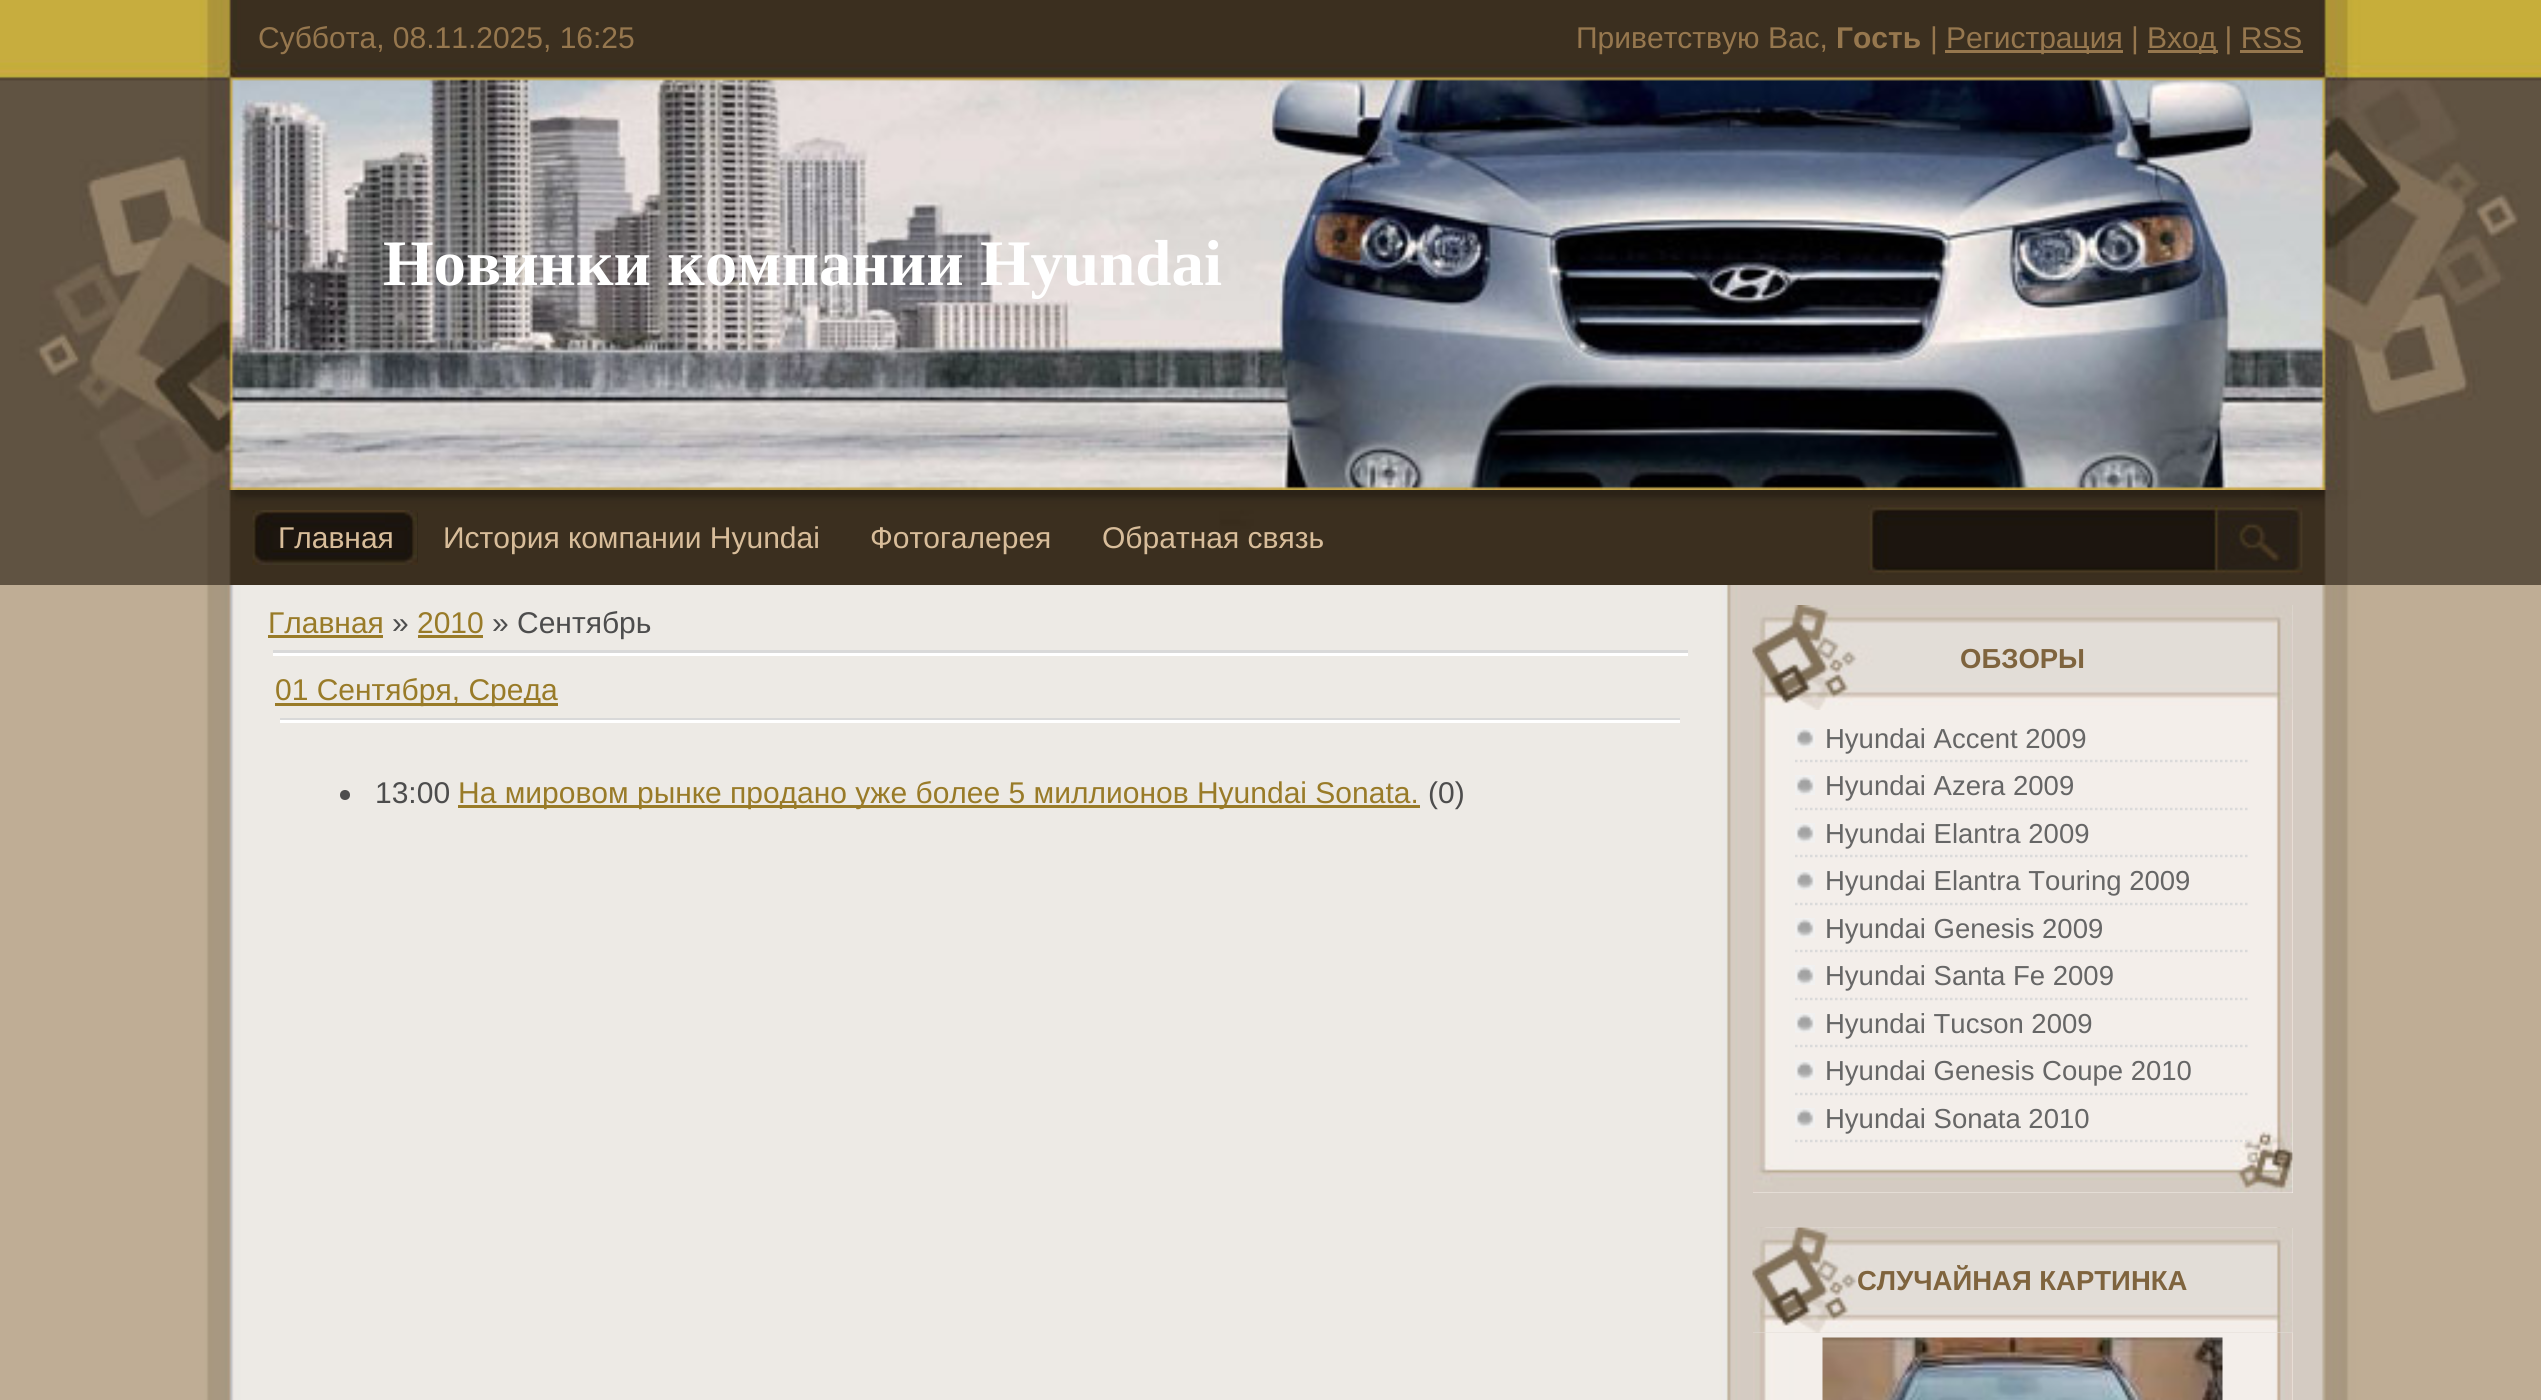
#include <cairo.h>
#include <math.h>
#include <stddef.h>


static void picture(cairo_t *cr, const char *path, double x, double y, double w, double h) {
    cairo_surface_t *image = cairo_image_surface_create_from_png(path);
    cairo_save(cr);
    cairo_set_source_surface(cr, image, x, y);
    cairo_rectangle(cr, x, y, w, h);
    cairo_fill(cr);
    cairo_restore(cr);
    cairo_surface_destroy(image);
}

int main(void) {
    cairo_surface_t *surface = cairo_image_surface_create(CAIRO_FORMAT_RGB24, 2541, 1400);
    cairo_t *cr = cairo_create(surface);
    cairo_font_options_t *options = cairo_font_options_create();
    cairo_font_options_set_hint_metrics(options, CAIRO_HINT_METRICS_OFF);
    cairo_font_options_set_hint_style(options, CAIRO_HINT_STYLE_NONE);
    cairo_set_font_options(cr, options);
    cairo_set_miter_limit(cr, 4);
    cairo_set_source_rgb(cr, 1, 1, 1);
    cairo_paint(cr);
    picture(cr, "img1.png", 0, 585, 2541, 815);
    picture(cr, "img2.png", 0, 0, 2541, 490);
    cairo_select_font_face(cr, "Liberation Sans", CAIRO_FONT_SLANT_NORMAL, CAIRO_FONT_WEIGHT_NORMAL);
    cairo_set_font_size(cr, 30);
    cairo_set_source_rgb(cr, 0.588, 0.467, 0.306);
    cairo_move_to(cr, 258, 48);
    cairo_show_text(cr, "Суббота, 08.11.2025, 16:25");
    cairo_move_to(cr, 1576, 48);
    cairo_show_text(cr, "Приветствую Вас,");
    cairo_select_font_face(cr, "Liberation Sans", CAIRO_FONT_SLANT_NORMAL, CAIRO_FONT_WEIGHT_BOLD);
    cairo_move_to(cr, 1836, 48);
    cairo_show_text(cr, "Гость");
    cairo_select_font_face(cr, "Liberation Sans", CAIRO_FONT_SLANT_NORMAL, CAIRO_FONT_WEIGHT_NORMAL);
    cairo_move_to(cr, 1930, 48);
    cairo_show_text(cr, "|");
    cairo_rectangle(cr, 1945, 50, 178, 3);
    cairo_fill(cr);
    cairo_move_to(cr, 1946, 48);
    cairo_show_text(cr, "Регистрация |");
    cairo_rectangle(cr, 2148, 50, 70, 3);
    cairo_fill(cr);
    cairo_move_to(cr, 2147, 48);
    cairo_show_text(cr, "Вход | RSS");
    cairo_rectangle(cr, 2240, 50, 63, 3);
    cairo_fill(cr);
    cairo_select_font_face(cr, "Liberation Serif", CAIRO_FONT_SLANT_NORMAL, CAIRO_FONT_WEIGHT_BOLD);
    cairo_set_font_size(cr, 65);
    cairo_set_source_rgb(cr, 1, 1, 1);
    cairo_move_to(cr, 383, 285);
    cairo_show_text(cr, "Новинки компании Hyundai");
    picture(cr, "img3.png", 0, 490, 2541, 95);
    picture(cr, "img4.png", 252, 510, 166, 55);
    picture(cr, "img5.png", 385, 510, 33, 55);
    cairo_select_font_face(cr, "Liberation Sans", CAIRO_FONT_SLANT_NORMAL, CAIRO_FONT_WEIGHT_NORMAL);
    cairo_set_font_size(cr, 30);
    cairo_set_source_rgb(cr, 0.847, 0.741, 0.604);
    cairo_move_to(cr, 278, 548);
    cairo_show_text(cr, "Главная");
    cairo_move_to(cr, 443, 548);
    cairo_show_text(cr, "История компании Hyundai");
    cairo_move_to(cr, 870, 548);
    cairo_show_text(cr, "Фотогалерея");
    cairo_move_to(cr, 1102, 548);
    cairo_show_text(cr, "Обратная связь");
    picture(cr, "img6.png", 1868, 505, 435, 70);
    cairo_set_source_rgb(cr, 0.6, 0.482, 0.157);
    cairo_move_to(cr, 268, 633);
    cairo_show_text(cr, "Главная");
    cairo_rectangle(cr, 268, 635, 115, 3);
    cairo_fill(cr);
    cairo_set_source_rgb(cr, 0.302, 0.302, 0.302);
    cairo_move_to(cr, 392, 633);
    cairo_show_text(cr, "»");
    cairo_set_source_rgb(cr, 0.6, 0.482, 0.157);
    cairo_move_to(cr, 417, 633);
    cairo_show_text(cr, "2010");
    cairo_rectangle(cr, 418, 635, 65, 3);
    cairo_fill(cr);
    cairo_set_source_rgb(cr, 0.302, 0.302, 0.302);
    cairo_move_to(cr, 492, 633);
    cairo_show_text(cr, "» Сентябрь");
    cairo_set_source_rgb(cr, 0.851, 0.851, 0.851);
    cairo_rectangle(cr, 273, 650, 1415, 3);
    cairo_fill(cr);
    cairo_set_source_rgb(cr, 1, 1, 1);
    cairo_rectangle(cr, 273, 653, 1415, 3);
    cairo_fill(cr);
    cairo_set_source_rgb(cr, 0.6, 0.482, 0.157);
    cairo_rectangle(cr, 275, 703, 283, 3);
    cairo_fill(cr);
    cairo_move_to(cr, 275, 700);
    cairo_show_text(cr, "01 Сентября, Среда");
    cairo_set_source_rgb(cr, 0.851, 0.851, 0.851);
    cairo_rectangle(cr, 280, 718, 1400, 2);
    cairo_fill(cr);
    cairo_set_source_rgb(cr, 1, 1, 1);
    cairo_rectangle(cr, 280, 720, 1400, 3);
    cairo_fill(cr);
    cairo_set_source_rgb(cr, 0.302, 0.302, 0.302);
    cairo_arc(cr, 345, 795, 5, 0, 2 * M_PI);
    cairo_fill(cr);
    cairo_move_to(cr, 375, 803);
    cairo_show_text(cr, "13:00");
    cairo_set_source_rgb(cr, 0.6, 0.482, 0.157);
    cairo_rectangle(cr, 458, 805, 962, 3);
    cairo_fill(cr);
    cairo_move_to(cr, 458, 803);
    cairo_show_text(cr, "На мировом рынке продано уже более 5 миллионов Hyundai Sonata.");
    cairo_set_source_rgb(cr, 0.302, 0.302, 0.302);
    cairo_move_to(cr, 1428, 803);
    cairo_show_text(cr, "(0)");
    cairo_set_source_rgb(cr, 0.957, 0.933, 0.914);
    cairo_rectangle(cr, 1753, 710, 540, 483);
    cairo_fill(cr);
    picture(cr, "img7.png", 1753, 710, 540, 483);
    cairo_set_source_rgb(cr, 0.89, 0.867, 0.843);
    cairo_rectangle(cr, 2292, 605, 1, 105);
    cairo_fill(cr);
    picture(cr, "img8.png", 1752, 605, 541, 105);
    cairo_select_font_face(cr, "Liberation Sans", CAIRO_FONT_SLANT_NORMAL, CAIRO_FONT_WEIGHT_BOLD);
    cairo_set_font_size(cr, 27.5);
    cairo_set_source_rgb(cr, 0.498, 0.392, 0.243);
    cairo_move_to(cr, 1960, 668);
    cairo_show_text(cr, "ОБЗОРЫ");
    cairo_new_path(cr);
    cairo_move_to(cr, 1795, 761);
    cairo_line_to(cr, 2250, 761);
    cairo_set_source_rgb(cr, 0.855, 0.855, 0.855);
    cairo_set_line_width(cr, 2.5);
    cairo_set_dash(cr, (double[]){2.5, 2.5}, 2, 0);
    cairo_stroke(cr);
    picture(cr, "img9.png", 1795, 728, 20, 20);
    cairo_select_font_face(cr, "Liberation Sans", CAIRO_FONT_SLANT_NORMAL, CAIRO_FONT_WEIGHT_NORMAL);
    cairo_set_source_rgb(cr, 0.4, 0.4, 0.4);
    cairo_move_to(cr, 1825, 748);
    cairo_show_text(cr, "Hyundai Accent 2009");
    cairo_new_path(cr);
    cairo_move_to(cr, 1795, 809);
    cairo_line_to(cr, 2250, 809);
    cairo_set_source_rgb(cr, 0.855, 0.855, 0.855);
    cairo_stroke(cr);
    picture(cr, "img10.png", 1795, 775, 20, 20);
    cairo_set_source_rgb(cr, 0.4, 0.4, 0.4);
    cairo_move_to(cr, 1825, 795);
    cairo_show_text(cr, "Hyundai Azera 2009");
    cairo_new_path(cr);
    cairo_move_to(cr, 1795, 856);
    cairo_line_to(cr, 2250, 856);
    cairo_set_source_rgb(cr, 0.855, 0.855, 0.855);
    cairo_stroke(cr);
    picture(cr, "img9.png", 1795, 823, 20, 20);
    cairo_set_source_rgb(cr, 0.4, 0.4, 0.4);
    cairo_move_to(cr, 1825, 843);
    cairo_show_text(cr, "Hyundai Elantra 2009");
    cairo_new_path(cr);
    cairo_move_to(cr, 1795, 904);
    cairo_line_to(cr, 2250, 904);
    cairo_set_source_rgb(cr, 0.855, 0.855, 0.855);
    cairo_stroke(cr);
    picture(cr, "img11.png", 1795, 870, 20, 20);
    cairo_set_source_rgb(cr, 0.4, 0.4, 0.4);
    cairo_move_to(cr, 1825, 890);
    cairo_show_text(cr, "Hyundai Elantra Touring 2009");
    cairo_new_path(cr);
    cairo_move_to(cr, 1795, 951);
    cairo_line_to(cr, 2250, 951);
    cairo_set_source_rgb(cr, 0.855, 0.855, 0.855);
    cairo_stroke(cr);
    picture(cr, "img9.png", 1795, 918, 20, 20);
    cairo_set_source_rgb(cr, 0.4, 0.4, 0.4);
    cairo_move_to(cr, 1825, 938);
    cairo_show_text(cr, "Hyundai Genesis 2009");
    cairo_new_path(cr);
    cairo_move_to(cr, 1795, 999);
    cairo_line_to(cr, 2250, 999);
    cairo_set_source_rgb(cr, 0.855, 0.855, 0.855);
    cairo_stroke(cr);
    picture(cr, "img11.png", 1795, 965, 20, 20);
    cairo_set_source_rgb(cr, 0.4, 0.4, 0.4);
    cairo_move_to(cr, 1825, 985);
    cairo_show_text(cr, "Hyundai Santa Fe 2009");
    cairo_new_path(cr);
    cairo_move_to(cr, 1795, 1046);
    cairo_line_to(cr, 2250, 1046);
    cairo_set_source_rgb(cr, 0.855, 0.855, 0.855);
    cairo_stroke(cr);
    picture(cr, "img9.png", 1795, 1013, 20, 20);
    cairo_set_source_rgb(cr, 0.4, 0.4, 0.4);
    cairo_move_to(cr, 1825, 1033);
    cairo_show_text(cr, "Hyundai Tucson 2009");
    cairo_new_path(cr);
    cairo_move_to(cr, 1795, 1094);
    cairo_line_to(cr, 2250, 1094);
    cairo_set_source_rgb(cr, 0.855, 0.855, 0.855);
    cairo_stroke(cr);
    picture(cr, "img11.png", 1795, 1060, 20, 20);
    cairo_set_source_rgb(cr, 0.4, 0.4, 0.4);
    cairo_move_to(cr, 1825, 1080);
    cairo_show_text(cr, "Hyundai Genesis Coupe 2010");
    cairo_new_path(cr);
    cairo_move_to(cr, 1795, 1141);
    cairo_line_to(cr, 2250, 1141);
    cairo_set_source_rgb(cr, 0.855, 0.855, 0.855);
    cairo_stroke(cr);
    picture(cr, "img9.png", 1795, 1108, 20, 20);
    cairo_set_source_rgb(cr, 0.4, 0.4, 0.4);
    cairo_move_to(cr, 1825, 1128);
    cairo_show_text(cr, "Hyundai Sonata 2010");
    cairo_set_source_rgb(cr, 0.957, 0.933, 0.914);
    cairo_rectangle(cr, 2292, 1333, 1, 67);
    cairo_fill(cr);
    picture(cr, "img12.png", 1753, 1227, 540, 173);
    cairo_set_source_rgb(cr, 0.89, 0.867, 0.843);
    cairo_rectangle(cr, 1753, 1228, 540, 105);
    cairo_fill(cr);
    picture(cr, "img13.png", 1752, 1227, 541, 106);
    cairo_select_font_face(cr, "Liberation Sans", CAIRO_FONT_SLANT_NORMAL, CAIRO_FONT_WEIGHT_BOLD);
    cairo_set_source_rgb(cr, 0.498, 0.392, 0.243);
    cairo_move_to(cr, 1857, 1290);
    cairo_show_text(cr, "СЛУЧАЙНАЯ КАРТИНКА");
    picture(cr, "img14.png", 1822, 1337, 401, 63);
    cairo_surface_write_to_png(surface, "page.png");
    cairo_font_options_destroy(options);
    cairo_destroy(cr);
    cairo_surface_destroy(surface);
    return 0;
}
